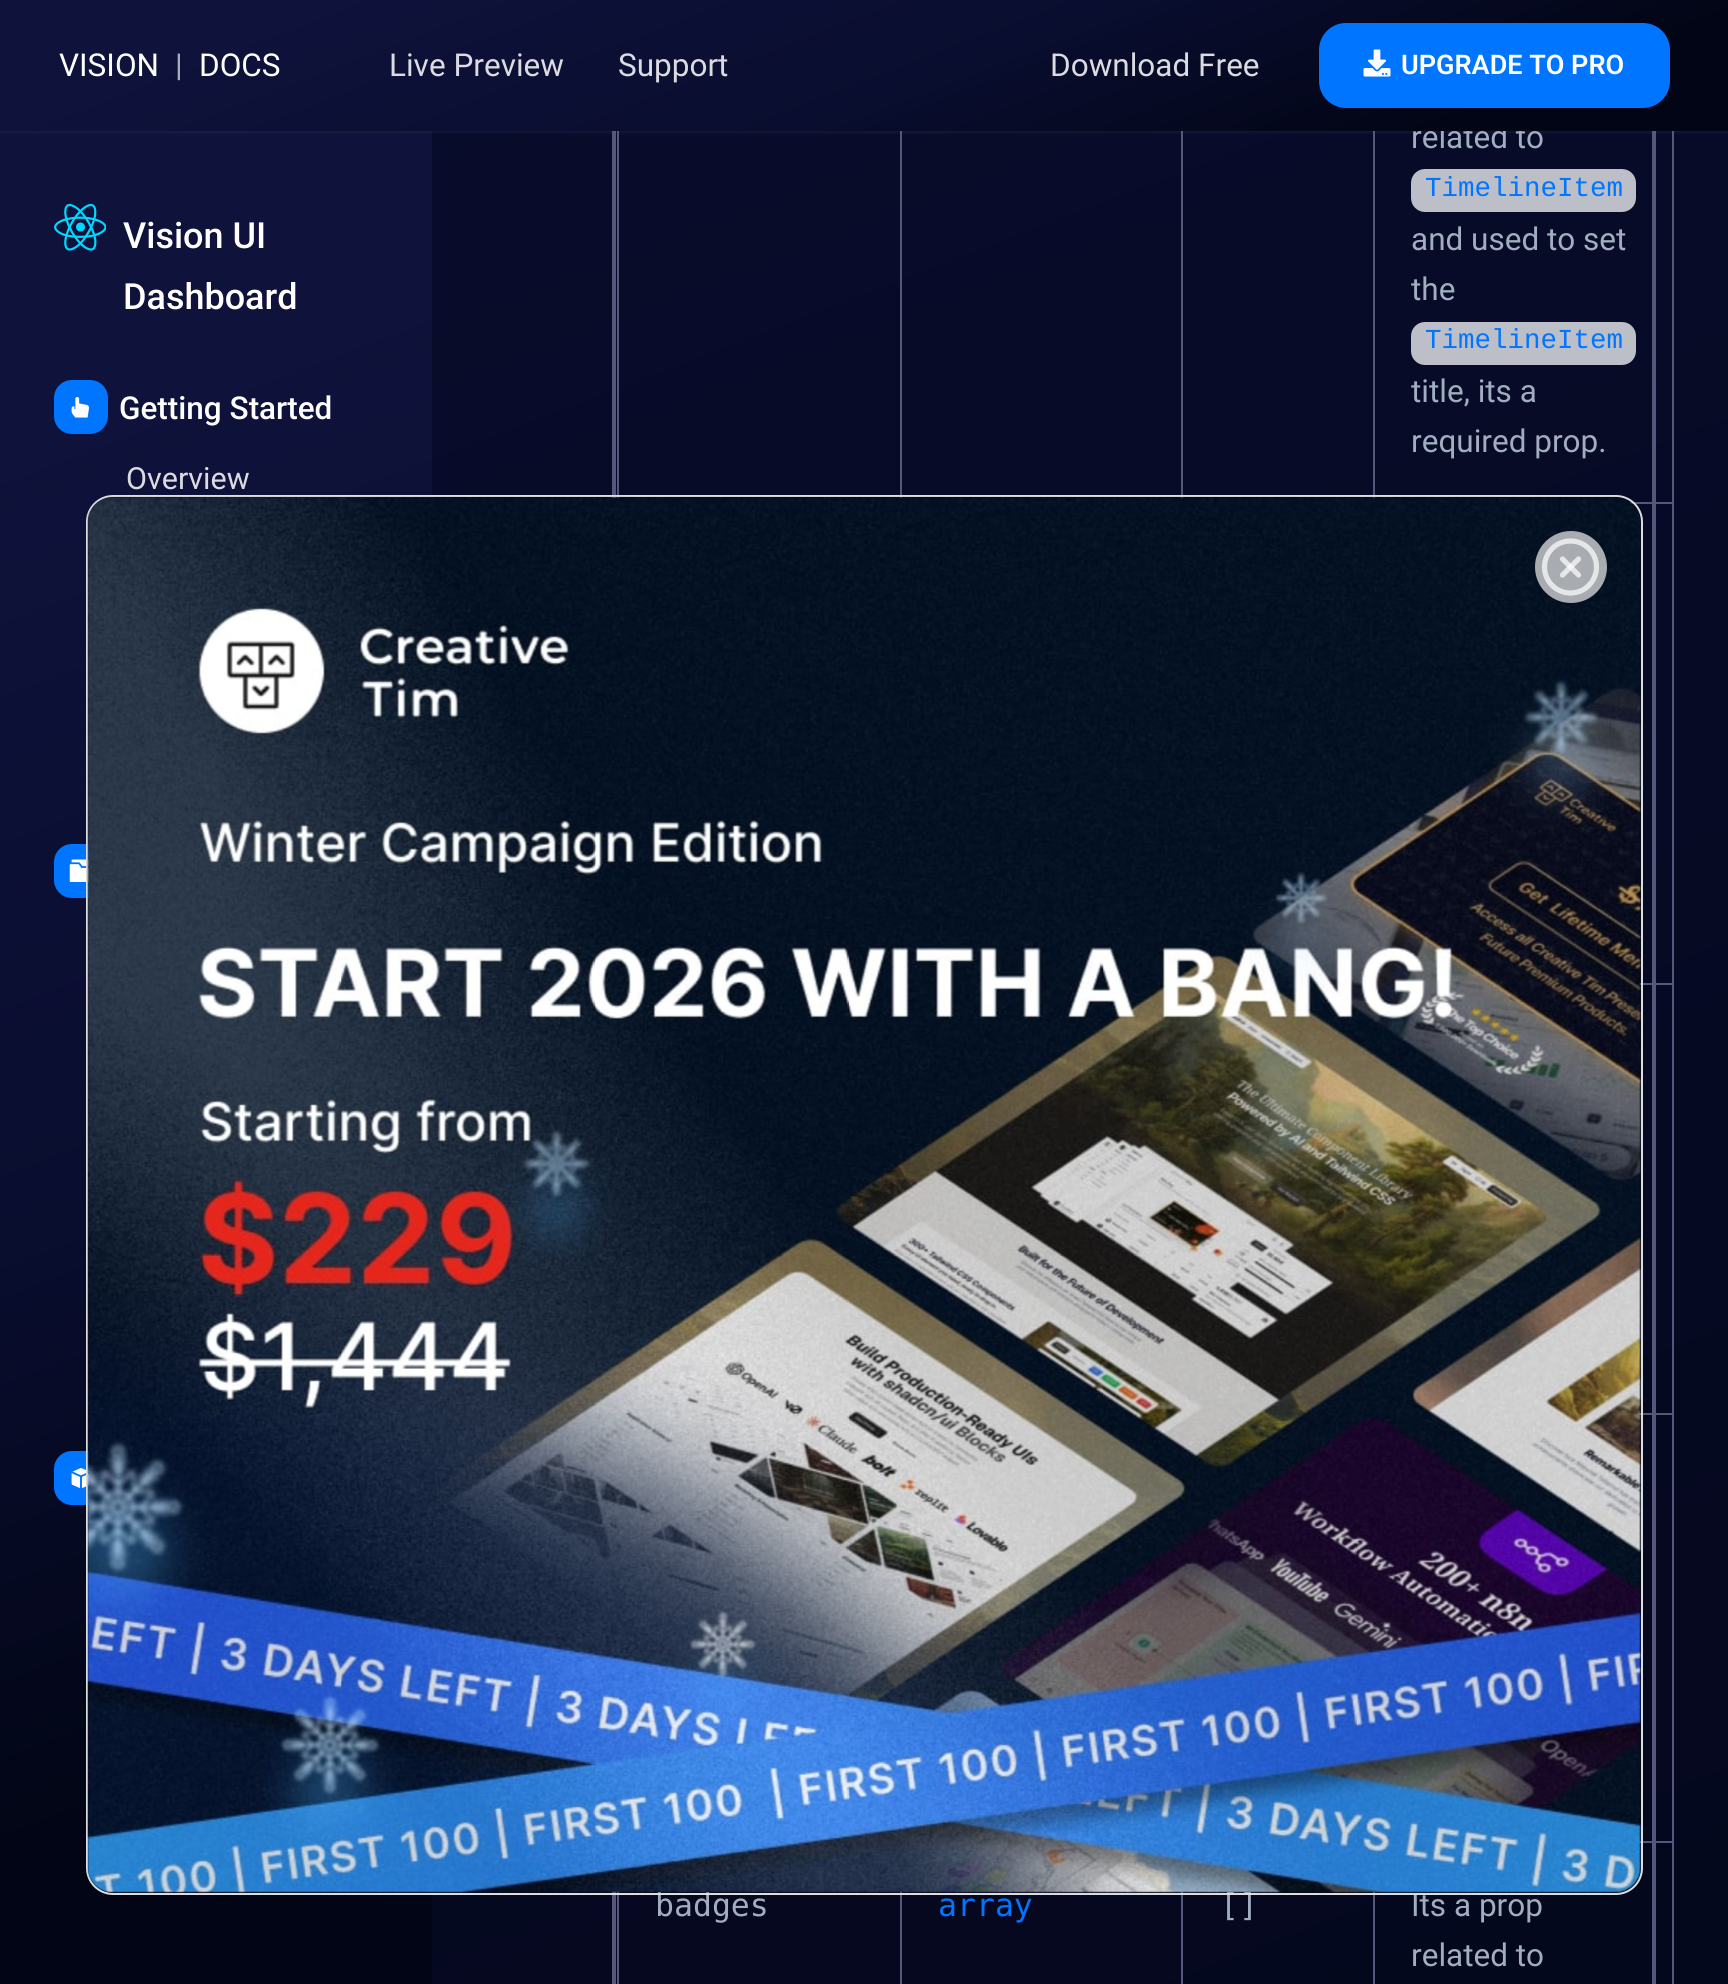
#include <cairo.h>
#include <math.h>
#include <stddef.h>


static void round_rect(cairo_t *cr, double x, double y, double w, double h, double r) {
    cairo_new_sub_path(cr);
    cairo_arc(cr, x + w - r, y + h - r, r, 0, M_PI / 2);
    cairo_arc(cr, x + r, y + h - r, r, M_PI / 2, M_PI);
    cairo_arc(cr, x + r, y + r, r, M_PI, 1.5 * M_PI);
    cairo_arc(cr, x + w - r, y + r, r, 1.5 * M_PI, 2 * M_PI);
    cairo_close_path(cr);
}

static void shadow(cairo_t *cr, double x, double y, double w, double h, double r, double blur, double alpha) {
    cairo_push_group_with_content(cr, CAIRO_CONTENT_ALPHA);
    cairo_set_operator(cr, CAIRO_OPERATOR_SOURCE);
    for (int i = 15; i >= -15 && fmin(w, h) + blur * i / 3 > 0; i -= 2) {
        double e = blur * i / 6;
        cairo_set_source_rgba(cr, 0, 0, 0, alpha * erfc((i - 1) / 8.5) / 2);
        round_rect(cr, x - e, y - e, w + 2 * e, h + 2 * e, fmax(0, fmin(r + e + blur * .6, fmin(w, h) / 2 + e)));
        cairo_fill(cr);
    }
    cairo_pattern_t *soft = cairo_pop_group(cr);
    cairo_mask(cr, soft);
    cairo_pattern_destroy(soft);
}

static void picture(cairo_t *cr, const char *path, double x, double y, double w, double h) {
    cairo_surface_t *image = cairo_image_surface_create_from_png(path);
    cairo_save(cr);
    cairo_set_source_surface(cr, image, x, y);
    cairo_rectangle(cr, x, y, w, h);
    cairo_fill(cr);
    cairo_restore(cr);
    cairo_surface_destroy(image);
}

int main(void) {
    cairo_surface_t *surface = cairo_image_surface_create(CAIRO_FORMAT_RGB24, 1728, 1984);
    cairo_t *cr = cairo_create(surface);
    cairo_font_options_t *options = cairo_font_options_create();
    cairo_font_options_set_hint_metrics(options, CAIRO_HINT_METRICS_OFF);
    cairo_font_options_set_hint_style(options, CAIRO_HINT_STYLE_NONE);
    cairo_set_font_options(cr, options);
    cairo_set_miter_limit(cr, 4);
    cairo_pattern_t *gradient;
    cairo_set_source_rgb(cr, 1, 1, 1);
    cairo_paint(cr);
    gradient = cairo_pattern_create_linear(-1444, -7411, 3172, 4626);
    cairo_pattern_add_color_stop_rgba(gradient, 0.14, 0.059, 0.071, 0.231, 1);
    cairo_pattern_add_color_stop_rgba(gradient, 0.56, 0.035, 0.051, 0.18, 1);
    cairo_pattern_add_color_stop_rgba(gradient, 0.86, 0.008, 0.02, 0.082, 1);
    cairo_set_source(cr, gradient);
    cairo_pattern_destroy(gradient);
    cairo_rectangle(cr, 432, 131, 1296, 1853);
    cairo_fill(cr);
    gradient = cairo_pattern_create_linear(-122, 173, 554, 1938);
    cairo_pattern_add_color_stop_rgba(gradient, 0.14, 0.059, 0.071, 0.231, 1);
    cairo_pattern_add_color_stop_rgba(gradient, 0.56, 0.035, 0.051, 0.18, 1);
    cairo_pattern_add_color_stop_rgba(gradient, 0.86, 0.008, 0.02, 0.082, 1);
    cairo_set_source(cr, gradient);
    cairo_pattern_destroy(gradient);
    cairo_rectangle(cr, 0, 131, 432, 1853);
    cairo_fill(cr);
    cairo_set_source_rgb(cr, 0.337, 0.341, 0.478);
    cairo_set_fill_rule(cr, CAIRO_FILL_RULE_EVEN_ODD);
    cairo_new_path(cr);
    cairo_move_to(cr, 612, -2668);
    cairo_line_to(cr, 1656, -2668);
    cairo_line_to(cr, 1656, 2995);
    cairo_curve_to(cr, 1656, 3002, 1650, 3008, 1642, 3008);
    cairo_line_to(cr, 626, 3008);
    cairo_curve_to(cr, 618, 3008, 612, 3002, 612, 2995);
    cairo_close_path(cr);
    cairo_move_to(cr, 616, -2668);
    cairo_line_to(cr, 1652, -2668);
    cairo_line_to(cr, 1652, 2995);
    cairo_curve_to(cr, 1652, 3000, 1647, 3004, 1642, 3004);
    cairo_line_to(cr, 626, 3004);
    cairo_curve_to(cr, 621, 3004, 616, 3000, 616, 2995);
    cairo_close_path(cr);
    cairo_fill(cr);
    cairo_rectangle(cr, 617, 131, 2, 373);
    cairo_fill(cr);
    cairo_rectangle(cr, 900, 131, 2, 373);
    cairo_fill(cr);
    cairo_rectangle(cr, 1181, 131, 2, 373);
    cairo_fill(cr);
    cairo_rectangle(cr, 1373, 131, 2, 373);
    cairo_fill(cr);
    cairo_rectangle(cr, 1629, 502, 45, 2);
    cairo_fill(cr);
    cairo_rectangle(cr, 1639, 983, 35, 2);
    cairo_fill(cr);
    cairo_rectangle(cr, 1639, 1413, 35, 2);
    cairo_fill(cr);
    cairo_rectangle(cr, 1639, 1841, 35, 2);
    cairo_fill(cr);
    cairo_rectangle(cr, 1672, 1841, 2, 143);
    cairo_fill(cr);
    cairo_rectangle(cr, 1672, 1413, 2, 430);
    cairo_fill(cr);
    cairo_rectangle(cr, 1672, 983, 2, 432);
    cairo_fill(cr);
    cairo_rectangle(cr, 1672, 131, 2, 855);
    cairo_fill(cr);
    cairo_set_source_rgb(cr, 0.455, 0.506, 0.553);
    shadow(cr, 0, 2, 1728, 131, 0, 1, 0.1);
    cairo_select_font_face(cr, "Roboto", CAIRO_FONT_SLANT_NORMAL, CAIRO_FONT_WEIGHT_NORMAL);
    cairo_set_font_size(cr, 31.5);
    cairo_set_source_rgb(cr, 0.627, 0.682, 0.753);
    cairo_move_to(cr, 1411, 148);
    cairo_show_text(cr, "related to");
    gradient = cairo_pattern_create_linear(731, -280, 997, 411);
    cairo_pattern_add_color_stop_rgba(gradient, 0.14, 0.059, 0.071, 0.231, 1);
    cairo_pattern_add_color_stop_rgba(gradient, 0.56, 0.035, 0.051, 0.18, 1);
    cairo_pattern_add_color_stop_rgba(gradient, 0.86, 0.008, 0.02, 0.082, 1);
    cairo_set_source(cr, gradient);
    cairo_pattern_destroy(gradient);
    cairo_rectangle(cr, 0, 0, 1728, 131);
    cairo_fill(cr);
    cairo_set_source_rgb(cr, 1, 1, 1);
    cairo_move_to(cr, 59, 76);
    cairo_show_text(cr, "VISION");
    cairo_set_source_rgb(cr, 0.671, 0.675, 0.729);
    cairo_move_to(cr, 175, 76);
    cairo_show_text(cr, "|");
    cairo_set_source_rgb(cr, 1, 1, 1);
    cairo_move_to(cr, 199, 76);
    cairo_show_text(cr, "DOCS");
    cairo_set_source_rgb(cr, 0.859, 0.859, 0.882);
    cairo_move_to(cr, 389, 76);
    cairo_show_text(cr, "Live Preview");
    cairo_move_to(cr, 618, 76);
    cairo_show_text(cr, "Support");
    cairo_move_to(cr, 1050, 76);
    cairo_show_text(cr, "Download Free");
    cairo_set_source_rgb(cr, 0, 0.459, 1);
    round_rect(cr, 1319, 23, 351, 85, 27);
    cairo_fill(cr);
    picture(cr, "img1.png", 1363, 49, 28, 28);
    cairo_select_font_face(cr, "Roboto SemiBold", CAIRO_FONT_SLANT_NORMAL, CAIRO_FONT_WEIGHT_NORMAL);
    cairo_set_font_size(cr, 27);
    cairo_set_source_rgb(cr, 1, 1, 1);
    cairo_move_to(cr, 1401, 74);
    cairo_show_text(cr, "UPGRADE TO PRO");
    picture(cr, "img2.png", 54, 203, 52, 48);
    cairo_select_font_face(cr, "Roboto Medium", CAIRO_FONT_SLANT_NORMAL, CAIRO_FONT_WEIGHT_NORMAL);
    cairo_set_font_size(cr, 36);
    cairo_move_to(cr, 123, 248);
    cairo_show_text(cr, "Vision UI");
    cairo_move_to(cr, 123, 309);
    cairo_show_text(cr, "Dashboard");
    cairo_set_source_rgb(cr, 0, 0.459, 1);
    round_rect(cr, 54, 380, 54, 54, 18);
    cairo_fill(cr);
    picture(cr, "img3.png", 71, 397, 18, 21);
    cairo_set_font_size(cr, 31.5);
    cairo_set_source_rgb(cr, 1, 1, 1);
    cairo_move_to(cr, 119, 419);
    cairo_show_text(cr, "Getting Started");
    cairo_select_font_face(cr, "Roboto", CAIRO_FONT_SLANT_NORMAL, CAIRO_FONT_WEIGHT_NORMAL);
    cairo_set_font_size(cr, 30.5);
    cairo_set_source_rgb(cr, 0.859, 0.859, 0.882);
    cairo_move_to(cr, 126, 489);
    cairo_show_text(cr, "Overview");
    cairo_set_source_rgb(cr, 0, 0.459, 1);
    round_rect(cr, 54, 844, 54, 54, 18);
    cairo_fill(cr);
    picture(cr, "img4.png", 69, 859, 20, 23);
    round_rect(cr, 54, 1451, 54, 54, 18);
    cairo_fill(cr);
    picture(cr, "img5.png", 71, 1468, 18, 21);
    cairo_set_source_rgb(cr, 0.737, 0.749, 0.78);
    round_rect(cr, 1411, 169, 225, 43, 14);
    cairo_fill(cr);
    cairo_select_font_face(cr, "Liberation Mono", CAIRO_FONT_SLANT_NORMAL, CAIRO_FONT_WEIGHT_NORMAL);
    cairo_set_font_size(cr, 27.5);
    cairo_set_source_rgb(cr, 0, 0.459, 1);
    cairo_move_to(cr, 1425, 196);
    cairo_show_text(cr, "TimelineItem");
    cairo_select_font_face(cr, "Roboto", CAIRO_FONT_SLANT_NORMAL, CAIRO_FONT_WEIGHT_NORMAL);
    cairo_set_font_size(cr, 31.5);
    cairo_set_source_rgb(cr, 0.627, 0.682, 0.753);
    cairo_move_to(cr, 1411, 250);
    cairo_show_text(cr, "and used to set");
    cairo_move_to(cr, 1411, 300);
    cairo_show_text(cr, "the");
    cairo_set_source_rgb(cr, 0.737, 0.749, 0.78);
    round_rect(cr, 1411, 322, 225, 43, 14);
    cairo_fill(cr);
    cairo_select_font_face(cr, "Liberation Mono", CAIRO_FONT_SLANT_NORMAL, CAIRO_FONT_WEIGHT_NORMAL);
    cairo_set_font_size(cr, 27.5);
    cairo_set_source_rgb(cr, 0, 0.459, 1);
    cairo_move_to(cr, 1425, 348);
    cairo_show_text(cr, "TimelineItem");
    cairo_select_font_face(cr, "Roboto", CAIRO_FONT_SLANT_NORMAL, CAIRO_FONT_WEIGHT_NORMAL);
    cairo_set_font_size(cr, 31.5);
    cairo_set_source_rgb(cr, 0.627, 0.682, 0.753);
    cairo_move_to(cr, 1411, 402);
    cairo_show_text(cr, "title, its a");
    cairo_move_to(cr, 1411, 452);
    cairo_show_text(cr, "required prop.");
    cairo_set_source_rgb(cr, 0.337, 0.341, 0.478);
    cairo_rectangle(cr, 617, 1891, 2, 93);
    cairo_fill(cr);
    cairo_select_font_face(cr, "DejaVu Sans Mono", CAIRO_FONT_SLANT_NORMAL, CAIRO_FONT_WEIGHT_NORMAL);
    cairo_set_source_rgb(cr, 0.627, 0.682, 0.753);
    cairo_move_to(cr, 655, 1916);
    cairo_show_text(cr, "badges");
    cairo_set_source_rgb(cr, 0.337, 0.341, 0.478);
    cairo_rectangle(cr, 900, 1891, 2, 93);
    cairo_fill(cr);
    cairo_set_source_rgb(cr, 0, 0.459, 1);
    cairo_move_to(cr, 938, 1916);
    cairo_show_text(cr, "array");
    cairo_set_source_rgb(cr, 0.337, 0.341, 0.478);
    cairo_rectangle(cr, 1181, 1891, 2, 93);
    cairo_fill(cr);
    cairo_set_source_rgb(cr, 0.627, 0.682, 0.753);
    cairo_move_to(cr, 1220, 1916);
    cairo_show_text(cr, "[]");
    cairo_set_source_rgb(cr, 0.337, 0.341, 0.478);
    cairo_rectangle(cr, 1373, 1891, 2, 93);
    cairo_fill(cr);
    cairo_select_font_face(cr, "Roboto", CAIRO_FONT_SLANT_NORMAL, CAIRO_FONT_WEIGHT_NORMAL);
    cairo_set_source_rgb(cr, 0.627, 0.682, 0.753);
    cairo_move_to(cr, 1411, 1916);
    cairo_show_text(cr, "Its a prop");
    cairo_move_to(cr, 1411, 1966);
    cairo_show_text(cr, "related to");
    round_rect(cr, 87, 496, 1555, 1398, 26);
    cairo_set_source_rgb(cr, 0.867, 0.867, 0.867);
    cairo_stroke(cr);
    picture(cr, "img6.png", 87, 496, 1554, 1397);
    cairo_set_source_rgba(cr, 0.937, 0.937, 0.937, 0.7);
    cairo_arc(cr, 1571, 567, 36, 0, 2 * M_PI);
    cairo_fill(cr);
    cairo_arc(cr, 1570.5, 567, 26, 0, 2 * M_PI);
    cairo_set_source_rgba(cr, 1, 1, 1, 0.7);
    cairo_set_line_width(cr, 5.2);
    cairo_stroke(cr);
    cairo_new_path(cr);
    cairo_move_to(cr, 1578.5, 559);
    cairo_line_to(cr, 1562.5, 575);
    cairo_set_line_cap(cr, CAIRO_LINE_CAP_ROUND);
    cairo_set_line_join(cr, CAIRO_LINE_JOIN_ROUND);
    cairo_stroke(cr);
    cairo_new_path(cr);
    cairo_move_to(cr, 1562.5, 559);
    cairo_line_to(cr, 1578.5, 575);
    cairo_stroke(cr);
    cairo_surface_write_to_png(surface, "page.png");
    cairo_font_options_destroy(options);
    cairo_destroy(cr);
    cairo_surface_destroy(surface);
    return 0;
}
